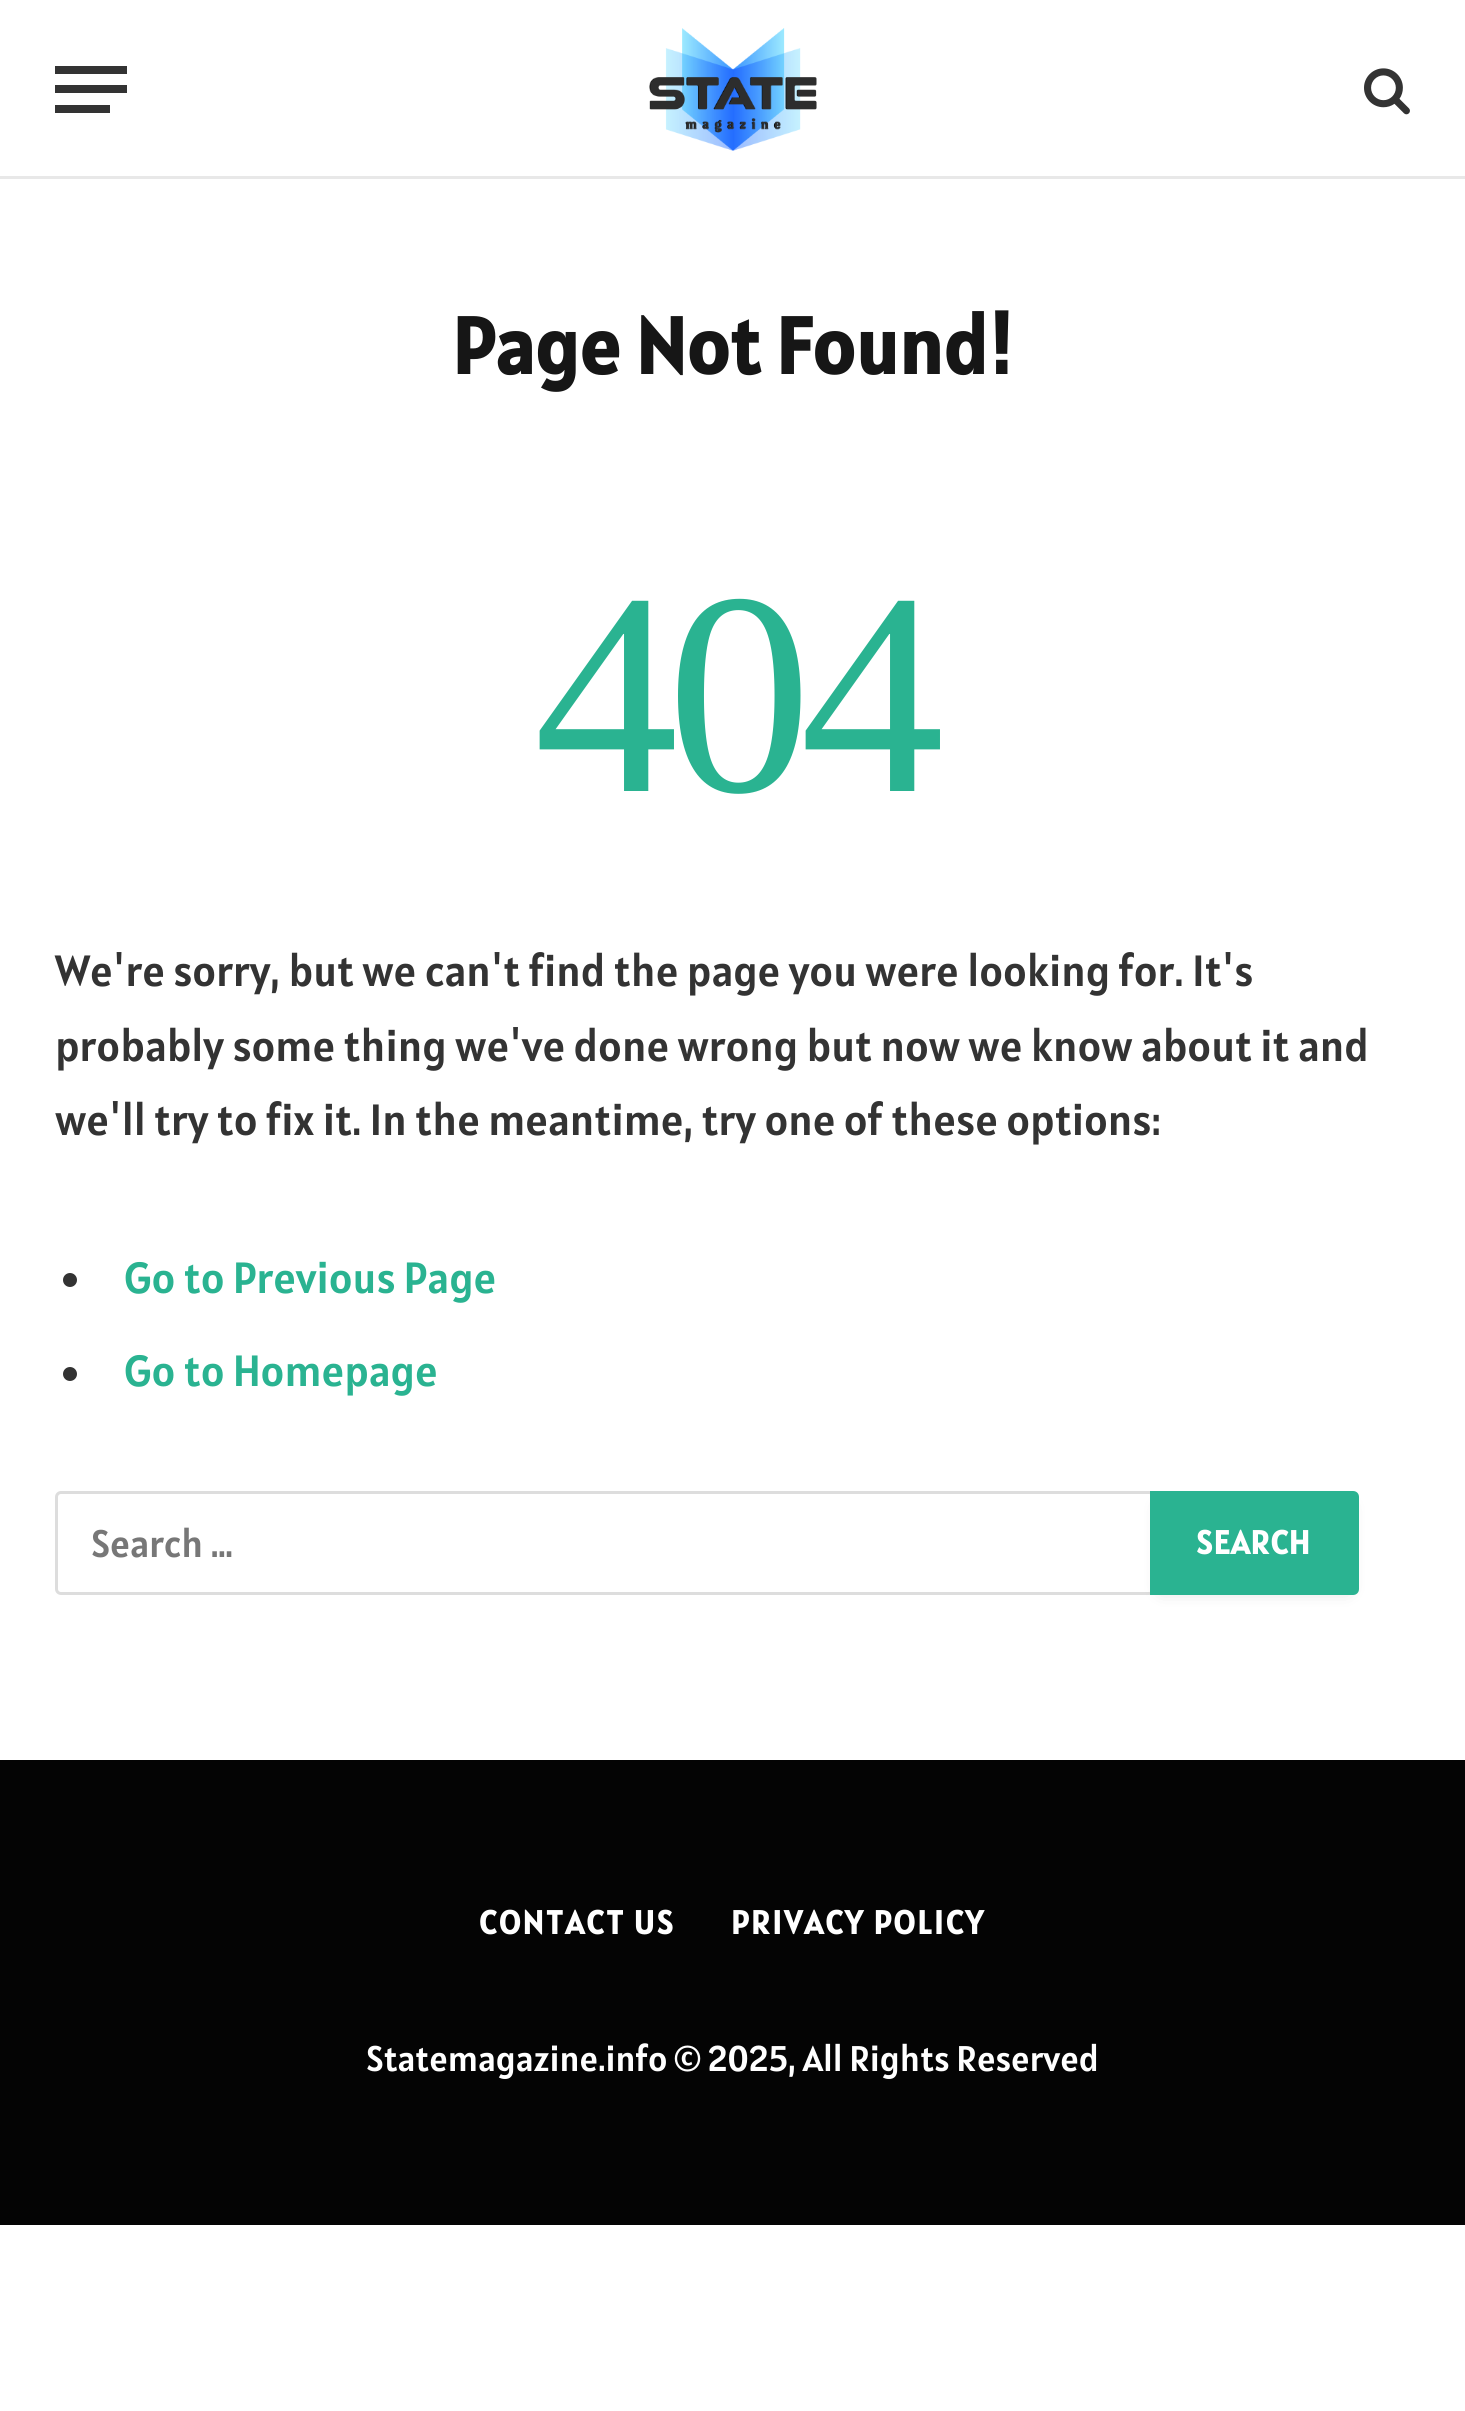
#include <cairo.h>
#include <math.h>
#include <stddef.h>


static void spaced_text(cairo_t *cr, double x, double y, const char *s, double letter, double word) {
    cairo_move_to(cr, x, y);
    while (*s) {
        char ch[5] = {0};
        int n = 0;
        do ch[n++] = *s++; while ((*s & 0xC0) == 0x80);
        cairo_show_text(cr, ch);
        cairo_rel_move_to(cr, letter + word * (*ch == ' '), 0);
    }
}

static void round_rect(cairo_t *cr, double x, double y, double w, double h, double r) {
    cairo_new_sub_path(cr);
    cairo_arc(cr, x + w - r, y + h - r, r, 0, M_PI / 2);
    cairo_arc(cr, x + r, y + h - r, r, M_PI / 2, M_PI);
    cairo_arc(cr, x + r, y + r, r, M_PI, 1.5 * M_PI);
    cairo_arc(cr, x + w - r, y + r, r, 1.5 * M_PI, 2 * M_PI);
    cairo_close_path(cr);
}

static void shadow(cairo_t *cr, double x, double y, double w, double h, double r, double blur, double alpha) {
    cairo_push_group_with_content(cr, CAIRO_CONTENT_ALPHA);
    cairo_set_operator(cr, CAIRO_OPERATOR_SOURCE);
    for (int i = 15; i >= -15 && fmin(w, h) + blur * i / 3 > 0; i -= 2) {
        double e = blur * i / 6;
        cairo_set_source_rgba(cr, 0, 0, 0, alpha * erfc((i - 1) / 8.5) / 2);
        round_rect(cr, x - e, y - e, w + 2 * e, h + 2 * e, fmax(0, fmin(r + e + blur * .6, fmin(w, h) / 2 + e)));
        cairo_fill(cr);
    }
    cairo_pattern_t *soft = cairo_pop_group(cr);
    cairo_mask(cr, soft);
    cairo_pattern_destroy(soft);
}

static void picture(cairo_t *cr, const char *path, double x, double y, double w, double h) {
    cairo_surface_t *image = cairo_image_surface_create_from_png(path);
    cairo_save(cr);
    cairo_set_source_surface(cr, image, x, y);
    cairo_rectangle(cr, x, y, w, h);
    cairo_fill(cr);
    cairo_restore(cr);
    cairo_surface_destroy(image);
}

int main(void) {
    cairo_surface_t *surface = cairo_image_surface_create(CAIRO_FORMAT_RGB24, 1465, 2411);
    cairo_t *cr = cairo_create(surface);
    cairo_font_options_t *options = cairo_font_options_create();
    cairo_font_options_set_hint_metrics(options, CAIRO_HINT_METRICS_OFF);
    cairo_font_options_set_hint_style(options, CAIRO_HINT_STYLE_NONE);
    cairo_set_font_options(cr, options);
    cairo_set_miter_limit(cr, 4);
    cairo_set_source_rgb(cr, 1, 1, 1);
    cairo_paint(cr);
    cairo_set_source_rgb(cr, 0.91, 0.91, 0.91);
    cairo_rectangle(cr, 0, 176, 1465, 3);
    cairo_fill(cr);
    cairo_set_source_rgb(cr, 0.2, 0.2, 0.2);
    cairo_rectangle(cr, 55, 105, 55, 8);
    cairo_fill(cr);
    cairo_rectangle(cr, 55, 66, 72, 8);
    cairo_fill(cr);
    cairo_rectangle(cr, 55, 85, 72, 8);
    cairo_fill(cr);
    picture(cr, "img1.png", 649, 28, 168, 123);
    picture(cr, "img2.png", 1364, 68, 46, 47);
    cairo_select_font_face(cr, "Alatsi", CAIRO_FONT_SLANT_NORMAL, CAIRO_FONT_WEIGHT_BOLD);
    cairo_set_font_size(cr, 79.75);
    cairo_set_source_rgb(cr, 0.086, 0.086, 0.086);
    cairo_move_to(cr, 452, 374);
    cairo_show_text(cr, "Page Not Found!");
    cairo_select_font_face(cr, "Liberation Serif", CAIRO_FONT_SLANT_NORMAL, CAIRO_FONT_WEIGHT_NORMAL);
    cairo_set_font_size(cr, 289);
    cairo_set_source_rgb(cr, 0.165, 0.702, 0.569);
    spaced_text(cr, 534, 791, "404", -11.5, 0);
    cairo_select_font_face(cr, "Alatsi", CAIRO_FONT_SLANT_NORMAL, CAIRO_FONT_WEIGHT_NORMAL);
    cairo_set_font_size(cr, 43.8);
    cairo_set_source_rgb(cr, 0.2, 0.2, 0.2);
    cairo_move_to(cr, 55, 986);
    cairo_show_text(cr, "We're sorry, but we can't find the page you were looking for. It's");
    cairo_move_to(cr, 55, 1061);
    cairo_show_text(cr, "probably some thing we've done wrong but now we know about it and");
    cairo_move_to(cr, 55, 1135);
    cairo_show_text(cr, "we'll try to fix it. In the meantime, try one of these options:");
    cairo_new_path(cr);
    cairo_arc(cr, 70, 1280, 7, 0, 2 * M_PI);
    cairo_fill(cr);
    cairo_set_source_rgb(cr, 0.165, 0.702, 0.569);
    cairo_move_to(cr, 124, 1293);
    cairo_show_text(cr, "Go to Previous Page");
    cairo_set_source_rgb(cr, 0.2, 0.2, 0.2);
    cairo_new_path(cr);
    cairo_arc(cr, 70, 1374, 7, 0, 2 * M_PI);
    cairo_fill(cr);
    cairo_set_source_rgb(cr, 0.165, 0.702, 0.569);
    cairo_move_to(cr, 124, 1386);
    cairo_show_text(cr, "Go to Homepage");
    round_rect(cr, 56.5, 1492.5, 1097, 101, 4.5);
    cairo_set_source_rgb(cr, 0.867, 0.867, 0.867);
    cairo_set_line_width(cr, 3);
    cairo_stroke(cr);
    cairo_set_font_size(cr, 38.5);
    cairo_set_source_rgb(cr, 0.467, 0.467, 0.467);
    cairo_move_to(cr, 91, 1557);
    cairo_show_text(cr, "Search …");
    cairo_set_source_rgb(cr, 0, 0, 0);
    shadow(cr, 1161, 1507, 187, 83, 0, 9.5, 0.16);
    cairo_set_source_rgb(cr, 0.165, 0.702, 0.569);
    cairo_new_path(cr);
    cairo_move_to(cr, 1150, 1491);
    cairo_line_to(cr, 1353, 1491);
    cairo_curve_to(cr, 1356.5, 1491, 1359, 1493.5, 1359, 1497);
    cairo_line_to(cr, 1359, 1589);
    cairo_curve_to(cr, 1359, 1592.5, 1356.5, 1595, 1353, 1595);
    cairo_line_to(cr, 1150, 1595);
    cairo_close_path(cr);
    cairo_fill(cr);
    cairo_select_font_face(cr, "Alatsi", CAIRO_FONT_SLANT_NORMAL, CAIRO_FONT_WEIGHT_BOLD);
    cairo_set_font_size(cr, 33);
    cairo_set_source_rgb(cr, 1, 1, 1);
    spaced_text(cr, 1196, 1554, "SEARCH", 1, 0);
    cairo_set_source_rgb(cr, 0.016, 0.016, 0.016);
    cairo_rectangle(cr, 0, 1760, 1465, 465);
    cairo_fill(cr);
    cairo_set_source_rgb(cr, 1, 1, 1);
    spaced_text(cr, 479, 1934, "CONTACT US", 2.25, 0);
    spaced_text(cr, 731, 1934, "PRIVACY POLICY", 2.25, 0);
    cairo_select_font_face(cr, "Alatsi", CAIRO_FONT_SLANT_NORMAL, CAIRO_FONT_WEIGHT_NORMAL);
    cairo_set_font_size(cr, 35.75);
    cairo_move_to(cr, 366, 2071);
    cairo_show_text(cr, "Statemagazine.info © 2025, All Rights Reserved");
    cairo_surface_write_to_png(surface, "page.png");
    cairo_font_options_destroy(options);
    cairo_destroy(cr);
    cairo_surface_destroy(surface);
    return 0;
}
